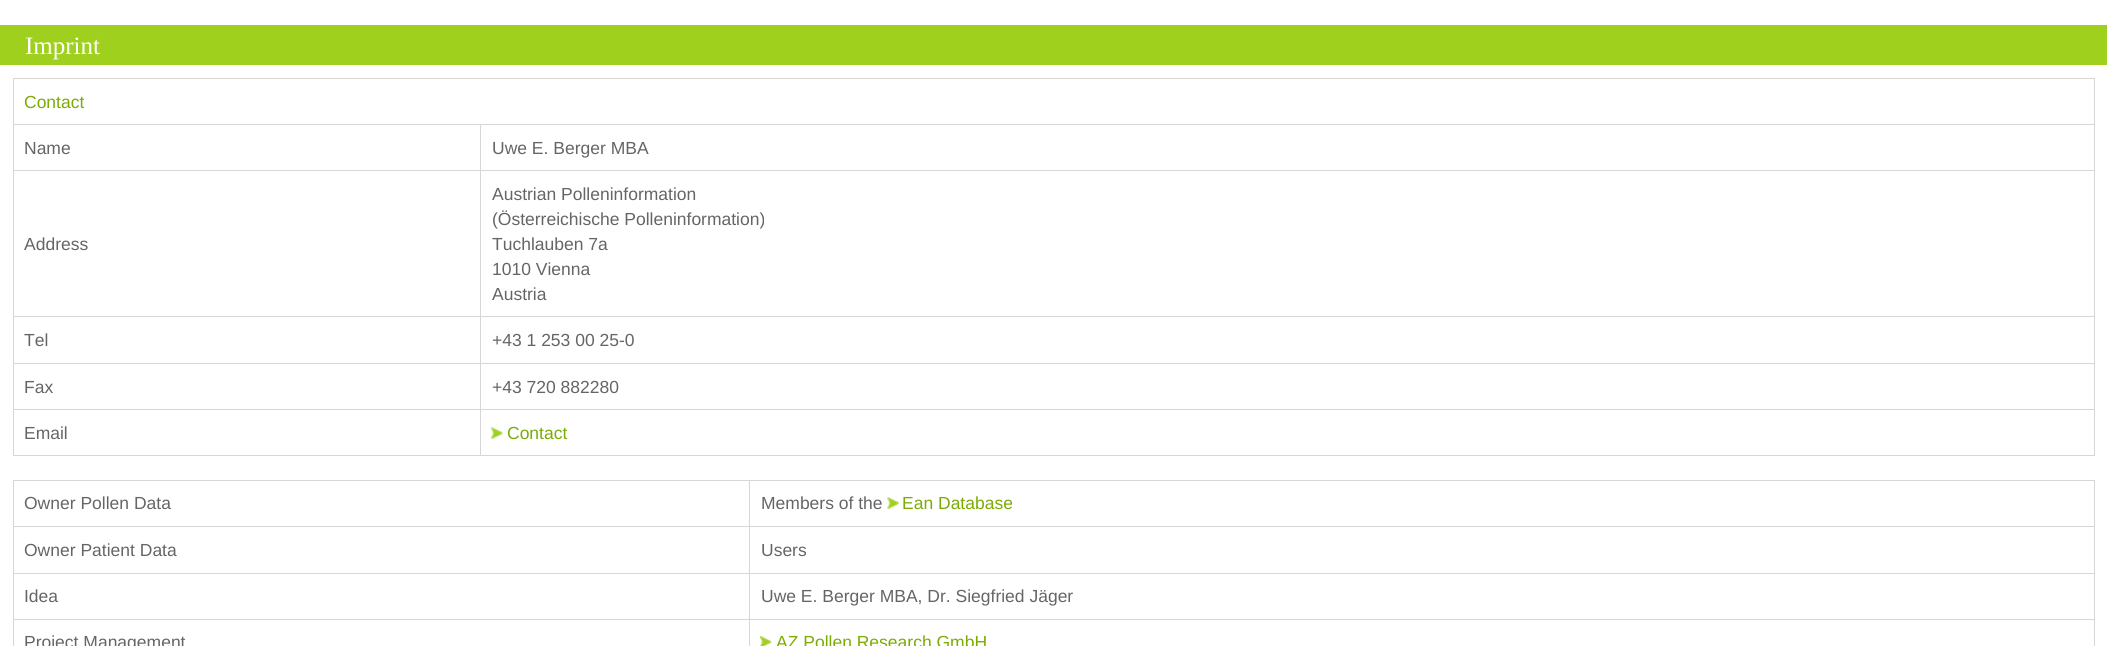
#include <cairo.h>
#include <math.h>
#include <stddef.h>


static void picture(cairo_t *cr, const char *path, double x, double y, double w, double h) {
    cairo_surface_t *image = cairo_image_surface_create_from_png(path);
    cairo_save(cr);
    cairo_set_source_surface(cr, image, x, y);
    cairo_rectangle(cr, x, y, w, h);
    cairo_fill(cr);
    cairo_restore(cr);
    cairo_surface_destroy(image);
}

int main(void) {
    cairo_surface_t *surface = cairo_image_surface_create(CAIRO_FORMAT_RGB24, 2107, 646);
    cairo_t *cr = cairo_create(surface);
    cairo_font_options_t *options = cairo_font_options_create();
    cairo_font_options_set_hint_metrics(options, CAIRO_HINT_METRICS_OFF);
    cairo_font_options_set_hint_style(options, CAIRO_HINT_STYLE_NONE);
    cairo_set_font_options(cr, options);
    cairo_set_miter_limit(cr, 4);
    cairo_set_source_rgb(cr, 1, 1, 1);
    cairo_paint(cr);
    cairo_set_source_rgb(cr, 0.627, 0.816, 0.118);
    cairo_rectangle(cr, 0, 25, 2107, 40);
    cairo_fill(cr);
    cairo_select_font_face(cr, "Liberation Serif", CAIRO_FONT_SLANT_NORMAL, CAIRO_FONT_WEIGHT_NORMAL);
    cairo_set_font_size(cr, 25);
    cairo_set_source_rgb(cr, 1, 1, 1);
    cairo_move_to(cr, 25, 54);
    cairo_show_text(cr, "Imprint");
    cairo_set_source_rgb(cr, 0.843, 0.843, 0.843);
    cairo_rectangle(cr, 13, 78, 2082, 1);
    cairo_fill(cr);
    cairo_rectangle(cr, 2094, 78, 1, 378);
    cairo_fill(cr);
    cairo_rectangle(cr, 13, 455, 2082, 1);
    cairo_fill(cr);
    cairo_rectangle(cr, 13, 78, 1, 378);
    cairo_fill(cr);
    cairo_select_font_face(cr, "Liberation Sans", CAIRO_FONT_SLANT_NORMAL, CAIRO_FONT_WEIGHT_NORMAL);
    cairo_set_font_size(cr, 17.5);
    cairo_set_source_rgb(cr, 0.482, 0.675, 0.008);
    cairo_move_to(cr, 24, 108);
    cairo_show_text(cr, "Contact");
    cairo_set_source_rgb(cr, 0.843, 0.843, 0.843);
    cairo_rectangle(cr, 480, 124, 1615, 1);
    cairo_fill(cr);
    cairo_rectangle(cr, 480, 170, 1615, 1);
    cairo_fill(cr);
    cairo_rectangle(cr, 480, 316, 1615, 1);
    cairo_fill(cr);
    cairo_rectangle(cr, 480, 363, 1615, 1);
    cairo_fill(cr);
    cairo_rectangle(cr, 480, 409, 1615, 1);
    cairo_fill(cr);
    cairo_rectangle(cr, 480, 409, 1, 47);
    cairo_fill(cr);
    cairo_rectangle(cr, 13, 409, 468, 1);
    cairo_fill(cr);
    cairo_rectangle(cr, 480, 363, 1, 47);
    cairo_fill(cr);
    cairo_rectangle(cr, 13, 363, 468, 1);
    cairo_fill(cr);
    cairo_rectangle(cr, 480, 316, 1, 48);
    cairo_fill(cr);
    cairo_rectangle(cr, 13, 316, 468, 1);
    cairo_fill(cr);
    cairo_rectangle(cr, 480, 170, 1, 148);
    cairo_fill(cr);
    cairo_rectangle(cr, 13, 170, 468, 1);
    cairo_fill(cr);
    cairo_rectangle(cr, 480, 124, 1, 47);
    cairo_fill(cr);
    cairo_rectangle(cr, 13, 124, 468, 1);
    cairo_fill(cr);
    cairo_set_source_rgb(cr, 0.392, 0.396, 0.404);
    cairo_move_to(cr, 24, 154);
    cairo_show_text(cr, "Name");
    cairo_move_to(cr, 492, 154);
    cairo_show_text(cr, "Uwe E. Berger MBA");
    cairo_move_to(cr, 24, 250);
    cairo_show_text(cr, "Address");
    cairo_move_to(cr, 492, 200);
    cairo_show_text(cr, "Austrian Polleninformation");
    cairo_move_to(cr, 492, 225);
    cairo_show_text(cr, "(Österreichische Polleninformation)");
    cairo_move_to(cr, 492, 250);
    cairo_show_text(cr, "Tuchlauben 7a");
    cairo_move_to(cr, 492, 275);
    cairo_show_text(cr, "1010 Vienna");
    cairo_move_to(cr, 492, 300);
    cairo_show_text(cr, "Austria");
    cairo_move_to(cr, 24, 346);
    cairo_show_text(cr, "Tel");
    cairo_move_to(cr, 492, 346);
    cairo_show_text(cr, "+43 1 253 00 25-0");
    cairo_move_to(cr, 24, 393);
    cairo_show_text(cr, "Fax");
    cairo_move_to(cr, 492, 393);
    cairo_show_text(cr, "+43 720 882280");
    cairo_move_to(cr, 24, 439);
    cairo_show_text(cr, "Email");
    picture(cr, "img1.png", 491, 427, 12, 12);
    cairo_set_source_rgb(cr, 0.482, 0.675, 0.008);
    cairo_move_to(cr, 507, 439);
    cairo_show_text(cr, "Contact");
    cairo_set_source_rgb(cr, 0.843, 0.843, 0.843);
    cairo_rectangle(cr, 13, 480, 2082, 1);
    cairo_fill(cr);
    cairo_rectangle(cr, 2094, 480, 1, 166);
    cairo_fill(cr);
    cairo_rectangle(cr, 13, 480, 1, 166);
    cairo_fill(cr);
    cairo_set_source_rgb(cr, 0.392, 0.396, 0.404);
    cairo_move_to(cr, 24, 509);
    cairo_show_text(cr, "Owner Pollen Data");
    cairo_set_source_rgb(cr, 0.843, 0.843, 0.843);
    cairo_rectangle(cr, 749, 526, 1346, 1);
    cairo_fill(cr);
    cairo_rectangle(cr, 749, 573, 1346, 1);
    cairo_fill(cr);
    cairo_rectangle(cr, 749, 619, 1346, 1);
    cairo_fill(cr);
    cairo_rectangle(cr, 749, 619, 1, 27);
    cairo_fill(cr);
    cairo_rectangle(cr, 13, 619, 737, 1);
    cairo_fill(cr);
    cairo_rectangle(cr, 749, 573, 1, 47);
    cairo_fill(cr);
    cairo_rectangle(cr, 13, 573, 737, 1);
    cairo_fill(cr);
    cairo_rectangle(cr, 749, 526, 1, 48);
    cairo_fill(cr);
    cairo_rectangle(cr, 13, 526, 737, 1);
    cairo_fill(cr);
    cairo_rectangle(cr, 749, 480, 1, 48);
    cairo_fill(cr);
    cairo_set_source_rgb(cr, 0.392, 0.396, 0.404);
    cairo_move_to(cr, 761, 509);
    cairo_show_text(cr, "Members of the");
    picture(cr, "img2.png", 887, 497, 12, 12);
    cairo_set_source_rgb(cr, 0.482, 0.675, 0.008);
    cairo_move_to(cr, 902, 509);
    cairo_show_text(cr, "Ean Database");
    cairo_set_source_rgb(cr, 0.392, 0.396, 0.404);
    cairo_move_to(cr, 24, 556);
    cairo_show_text(cr, "Owner Patient Data");
    cairo_move_to(cr, 761, 556);
    cairo_show_text(cr, "Users");
    cairo_move_to(cr, 24, 602);
    cairo_show_text(cr, "Idea");
    cairo_move_to(cr, 761, 602);
    cairo_show_text(cr, "Uwe E. Berger MBA, Dr. Siegfried Jäger");
    cairo_move_to(cr, 24, 648);
    cairo_show_text(cr, "Project Management");
    picture(cr, "img3.png", 760, 636, 12, 10);
    cairo_set_source_rgb(cr, 0.482, 0.675, 0.008);
    cairo_move_to(cr, 776, 648);
    cairo_show_text(cr, "AZ Pollen Research GmbH");
    cairo_surface_write_to_png(surface, "page.png");
    cairo_font_options_destroy(options);
    cairo_destroy(cr);
    cairo_surface_destroy(surface);
    return 0;
}
